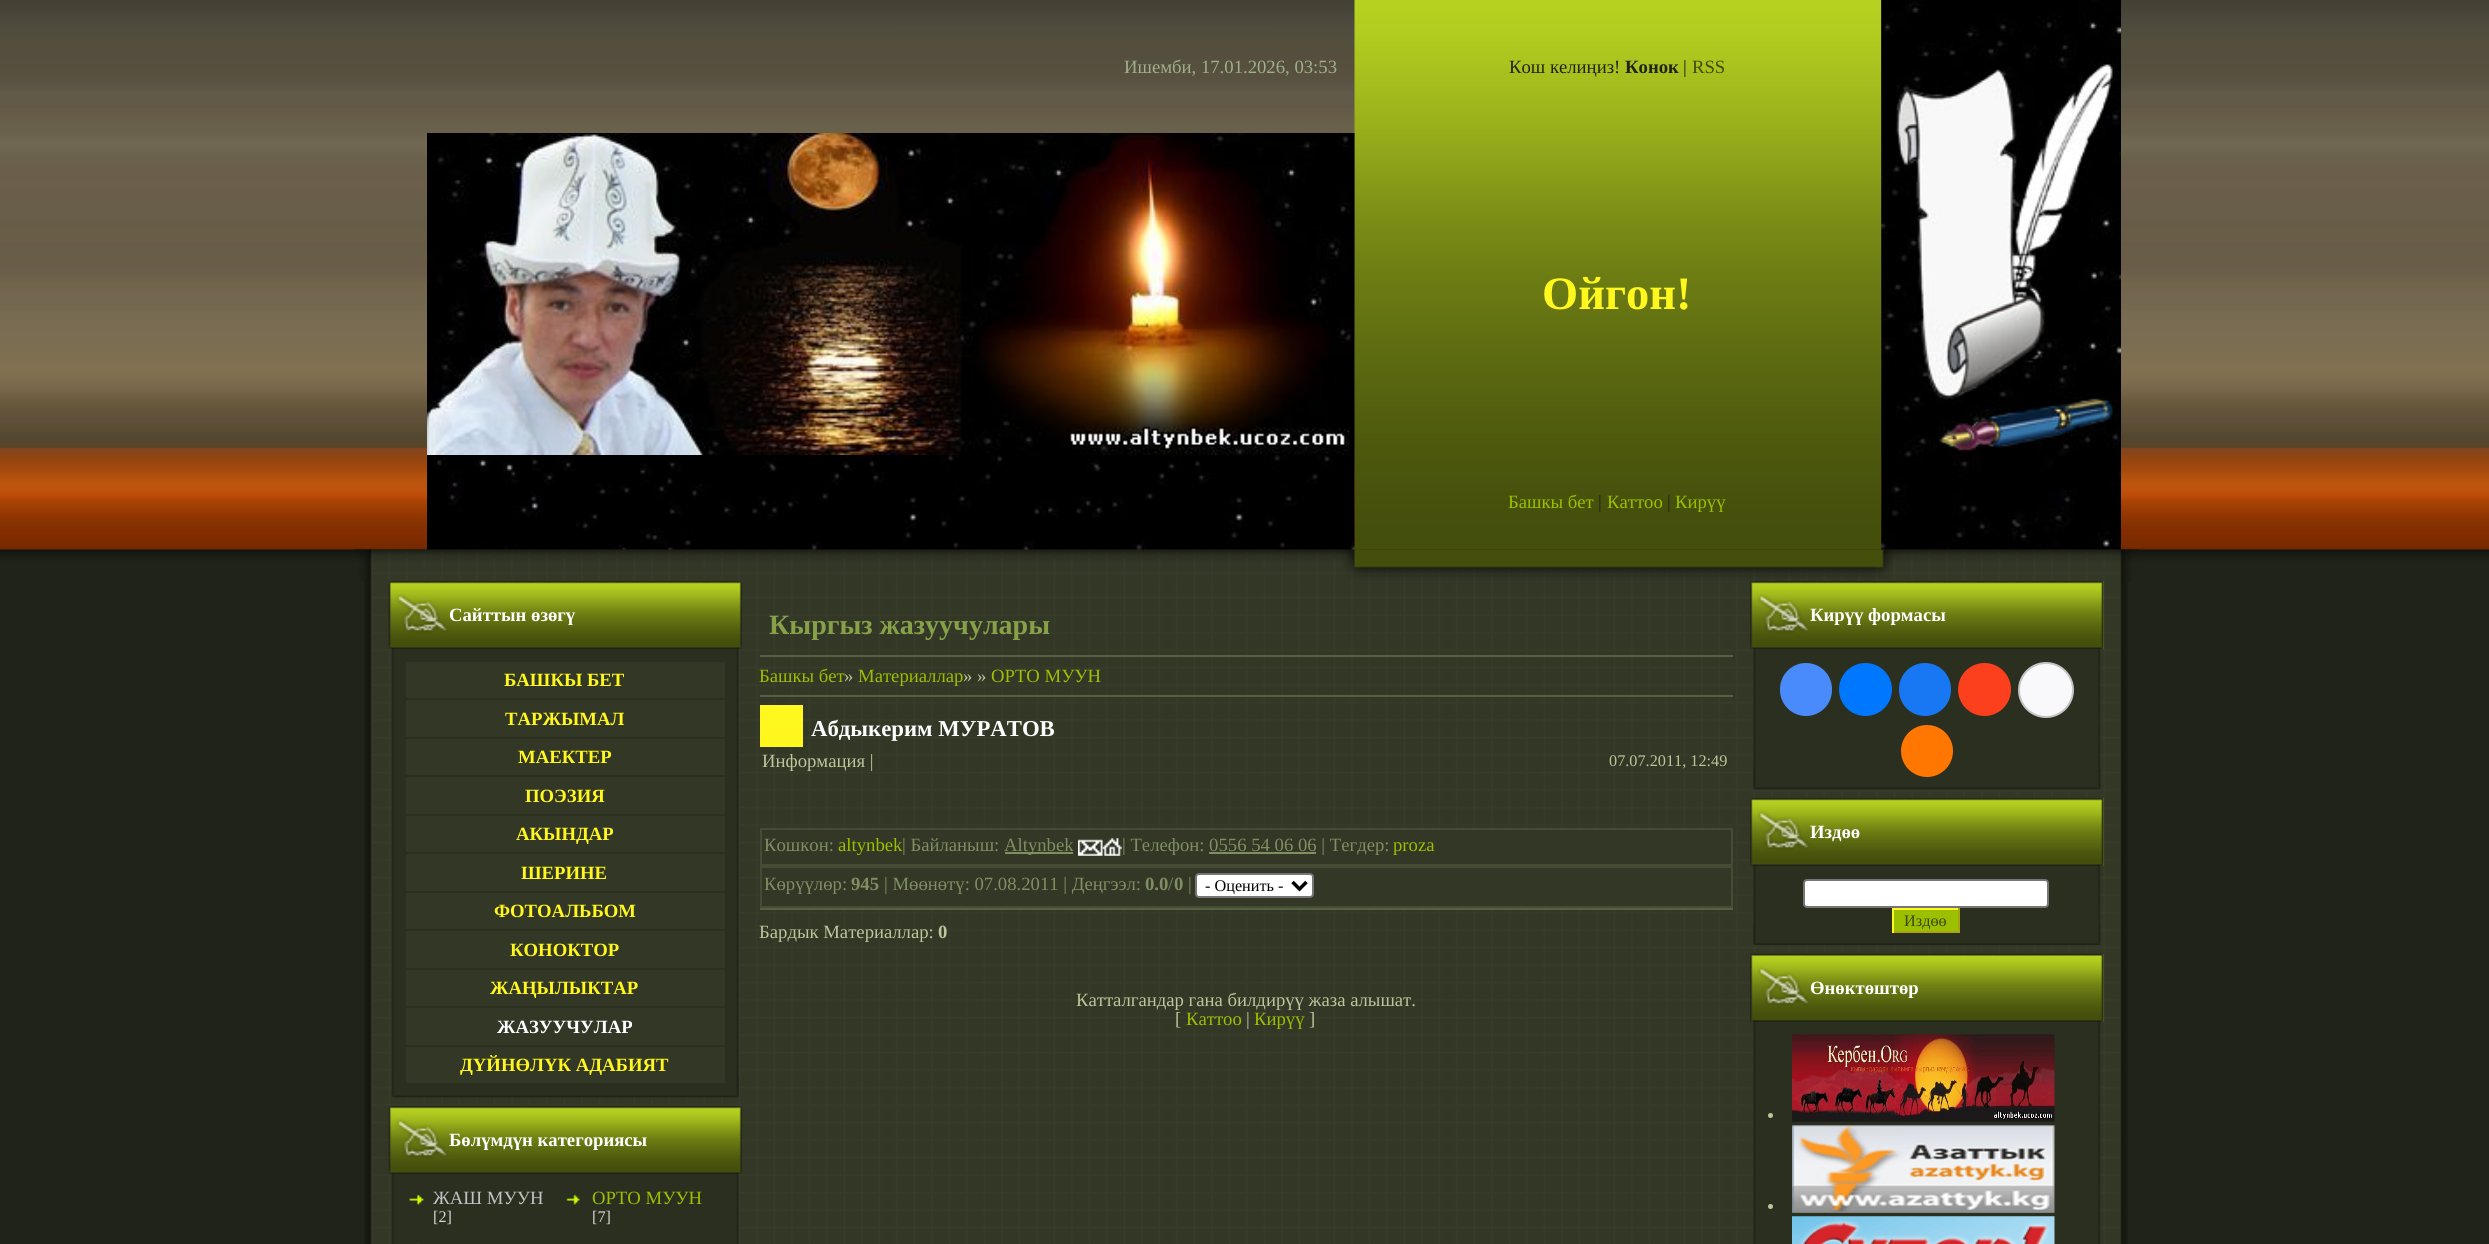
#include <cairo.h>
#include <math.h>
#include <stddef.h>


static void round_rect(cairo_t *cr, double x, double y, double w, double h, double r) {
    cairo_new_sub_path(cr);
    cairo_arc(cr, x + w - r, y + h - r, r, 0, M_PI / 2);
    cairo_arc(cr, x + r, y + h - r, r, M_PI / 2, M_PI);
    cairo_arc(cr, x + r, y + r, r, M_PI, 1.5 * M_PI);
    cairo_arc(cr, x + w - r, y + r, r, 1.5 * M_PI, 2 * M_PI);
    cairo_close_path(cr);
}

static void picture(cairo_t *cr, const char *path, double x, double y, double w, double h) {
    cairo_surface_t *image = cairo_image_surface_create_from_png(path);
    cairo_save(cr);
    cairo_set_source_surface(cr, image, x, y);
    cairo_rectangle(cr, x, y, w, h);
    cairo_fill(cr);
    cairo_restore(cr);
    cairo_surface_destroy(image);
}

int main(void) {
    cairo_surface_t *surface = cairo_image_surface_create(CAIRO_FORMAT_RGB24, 2489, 1244);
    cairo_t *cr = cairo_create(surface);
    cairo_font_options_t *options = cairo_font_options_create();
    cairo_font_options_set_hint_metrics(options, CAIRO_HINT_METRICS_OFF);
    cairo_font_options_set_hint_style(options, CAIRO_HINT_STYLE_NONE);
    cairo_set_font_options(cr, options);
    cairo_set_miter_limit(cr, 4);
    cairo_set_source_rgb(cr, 0.125, 0.137, 0.094);
    cairo_paint(cr);
    picture(cr, "img1.png", 364, 581, 1764, 663);
    picture(cr, "img2.png", 0, 0, 2489, 574);
    cairo_select_font_face(cr, "Liberation Serif", CAIRO_FONT_SLANT_NORMAL, CAIRO_FONT_WEIGHT_NORMAL);
    cairo_set_font_size(cr, 18.7);
    cairo_set_source_rgb(cr, 0.624, 0.686, 0.533);
    cairo_move_to(cr, 1124, 73);
    cairo_show_text(cr, "Ишемби, 17.01.2026, 03:53");
    picture(cr, "img3.png", 1354, 0, 528, 133);
    cairo_set_source_rgb(cr, 0.125, 0.137, 0.094);
    cairo_move_to(cr, 1509, 73);
    cairo_show_text(cr, "Кош келиңиз!");
    cairo_select_font_face(cr, "Liberation Serif", CAIRO_FONT_SLANT_NORMAL, CAIRO_FONT_WEIGHT_BOLD);
    cairo_move_to(cr, 1625, 73);
    cairo_show_text(cr, "Конок");
    cairo_select_font_face(cr, "Liberation Serif", CAIRO_FONT_SLANT_NORMAL, CAIRO_FONT_WEIGHT_NORMAL);
    cairo_move_to(cr, 1683, 73);
    cairo_show_text(cr, "|");
    cairo_set_source_rgb(cr, 0.255, 0.298, 0);
    cairo_move_to(cr, 1692, 73);
    cairo_show_text(cr, "RSS");
    picture(cr, "img6.png", 1354, 133, 528, 322);
    picture(cr, "img8.png", 1354, 455, 528, 95);
    picture(cr, "img9.png", 353, 549, 1786, 32);
    picture(cr, "img4.png", 1881, 0, 240, 550);
    picture(cr, "img5.png", 427, 133, 928, 322);
    cairo_select_font_face(cr, "Liberation Serif", CAIRO_FONT_SLANT_NORMAL, CAIRO_FONT_WEIGHT_BOLD);
    cairo_set_font_size(cr, 46.5);
    cairo_set_source_rgb(cr, 1, 0.965, 0.118);
    cairo_move_to(cr, 1542, 309);
    cairo_show_text(cr, "Ойгон!");
    picture(cr, "img7.png", 427, 455, 928, 95);
    cairo_select_font_face(cr, "Liberation Serif", CAIRO_FONT_SLANT_NORMAL, CAIRO_FONT_WEIGHT_NORMAL);
    cairo_set_font_size(cr, 18.7);
    cairo_set_source_rgb(cr, 0.604, 0.753, 0);
    cairo_move_to(cr, 1508, 508);
    cairo_show_text(cr, "Башкы бет");
    cairo_set_source_rgb(cr, 0.125, 0.137, 0.094);
    cairo_move_to(cr, 1598, 508);
    cairo_show_text(cr, "|");
    cairo_set_source_rgb(cr, 0.604, 0.753, 0);
    cairo_move_to(cr, 1607, 508);
    cairo_show_text(cr, "Каттоо");
    cairo_set_source_rgb(cr, 0.125, 0.137, 0.094);
    cairo_move_to(cr, 1667, 508);
    cairo_show_text(cr, "|");
    cairo_set_source_rgb(cr, 0.604, 0.753, 0);
    cairo_move_to(cr, 1675, 508);
    cairo_show_text(cr, "Кирүү");
    picture(cr, "img10.png", 391, 649, 348, 449);
    picture(cr, "img11.png", 388, 581, 354, 68);
    cairo_select_font_face(cr, "Liberation Serif", CAIRO_FONT_SLANT_NORMAL, CAIRO_FONT_WEIGHT_BOLD);
    cairo_set_source_rgb(cr, 1, 1, 1);
    cairo_move_to(cr, 449, 621);
    cairo_show_text(cr, "Сайттын өзөгү");
    picture(cr, "img12.png", 394, 1076, 345, 22);
    cairo_set_source_rgb(cr, 0.196, 0.216, 0.149);
    cairo_rectangle(cr, 406, 662, 319, 36);
    cairo_fill(cr);
    cairo_set_source_rgb(cr, 1, 0.965, 0.118);
    cairo_move_to(cr, 504, 686);
    cairo_show_text(cr, "БАШКЫ БЕТ");
    cairo_set_source_rgb(cr, 0.196, 0.216, 0.149);
    cairo_rectangle(cr, 406, 700, 319, 37);
    cairo_fill(cr);
    cairo_set_source_rgb(cr, 1, 0.965, 0.118);
    cairo_move_to(cr, 505, 725);
    cairo_show_text(cr, "ТАРЖЫМАЛ");
    cairo_set_source_rgb(cr, 0.196, 0.216, 0.149);
    cairo_rectangle(cr, 406, 739, 319, 36);
    cairo_fill(cr);
    cairo_set_source_rgb(cr, 1, 0.965, 0.118);
    cairo_move_to(cr, 518, 763);
    cairo_show_text(cr, "МАЕКТЕР");
    cairo_set_source_rgb(cr, 0.196, 0.216, 0.149);
    cairo_rectangle(cr, 406, 777, 319, 37);
    cairo_fill(cr);
    cairo_set_source_rgb(cr, 1, 0.965, 0.118);
    cairo_move_to(cr, 525, 802);
    cairo_show_text(cr, "ПОЭЗИЯ");
    cairo_set_source_rgb(cr, 0.196, 0.216, 0.149);
    cairo_rectangle(cr, 406, 816, 319, 36);
    cairo_fill(cr);
    cairo_set_source_rgb(cr, 1, 0.965, 0.118);
    cairo_move_to(cr, 516, 840);
    cairo_show_text(cr, "АКЫНДАР");
    cairo_set_source_rgb(cr, 0.196, 0.216, 0.149);
    cairo_rectangle(cr, 406, 854, 319, 37);
    cairo_fill(cr);
    cairo_set_source_rgb(cr, 1, 0.965, 0.118);
    cairo_move_to(cr, 521, 879);
    cairo_show_text(cr, "ШЕРИНЕ");
    cairo_set_source_rgb(cr, 0.196, 0.216, 0.149);
    cairo_rectangle(cr, 406, 893, 319, 36);
    cairo_fill(cr);
    cairo_set_source_rgb(cr, 1, 0.965, 0.118);
    cairo_move_to(cr, 494, 917);
    cairo_show_text(cr, "ФОТОАЛЬБОМ");
    cairo_set_source_rgb(cr, 0.196, 0.216, 0.149);
    cairo_rectangle(cr, 406, 931, 319, 37);
    cairo_fill(cr);
    cairo_set_source_rgb(cr, 1, 0.965, 0.118);
    cairo_move_to(cr, 510, 956);
    cairo_show_text(cr, "КОНОКТОР");
    cairo_set_source_rgb(cr, 0.196, 0.216, 0.149);
    cairo_rectangle(cr, 406, 970, 319, 36);
    cairo_fill(cr);
    cairo_set_source_rgb(cr, 1, 0.965, 0.118);
    cairo_move_to(cr, 490, 994);
    cairo_show_text(cr, "ЖАҢЫЛЫКТАР");
    cairo_set_source_rgb(cr, 0.196, 0.216, 0.149);
    cairo_rectangle(cr, 406, 1008, 319, 37);
    cairo_fill(cr);
    cairo_set_source_rgb(cr, 1, 1, 1);
    cairo_move_to(cr, 497, 1033);
    cairo_show_text(cr, "ЖАЗУУЧУЛАР");
    cairo_set_source_rgb(cr, 0.196, 0.216, 0.149);
    cairo_rectangle(cr, 406, 1047, 319, 36);
    cairo_fill(cr);
    cairo_set_source_rgb(cr, 1, 0.965, 0.118);
    cairo_move_to(cr, 460, 1071);
    cairo_show_text(cr, "ДҮЙНӨЛҮК АДАБИЯТ");
    picture(cr, "img13.png", 391, 1174, 348, 70);
    picture(cr, "img11.png", 388, 1106, 354, 68);
    cairo_set_source_rgb(cr, 1, 1, 1);
    cairo_move_to(cr, 449, 1146);
    cairo_show_text(cr, "Бөлүмдүн категориясы");
    picture(cr, "img14.png", 409, 1194, 15, 11);
    cairo_select_font_face(cr, "Liberation Serif", CAIRO_FONT_SLANT_NORMAL, CAIRO_FONT_WEIGHT_NORMAL);
    cairo_set_source_rgb(cr, 0.761, 0.761, 0.761);
    cairo_move_to(cr, 433, 1204);
    cairo_show_text(cr, "ЖАШ МУУН");
    cairo_set_font_size(cr, 16.25);
    cairo_set_source_rgb(cr, 0.847, 0.835, 0.835);
    cairo_move_to(cr, 433, 1222);
    cairo_show_text(cr, "[2]");
    picture(cr, "img15.png", 566, 1194, 14, 11);
    cairo_set_font_size(cr, 18.7);
    cairo_set_source_rgb(cr, 0.604, 0.753, 0);
    cairo_move_to(cr, 592, 1204);
    cairo_show_text(cr, "ОРТО МУУН");
    cairo_set_font_size(cr, 16.25);
    cairo_set_source_rgb(cr, 0.847, 0.835, 0.835);
    cairo_move_to(cr, 592, 1222);
    cairo_show_text(cr, "[7]");
    picture(cr, "img16.png", 417, 1243, 3, 1);
    cairo_select_font_face(cr, "Liberation Serif", CAIRO_FONT_SLANT_NORMAL, CAIRO_FONT_WEIGHT_BOLD);
    cairo_set_font_size(cr, 28);
    cairo_set_source_rgb(cr, 0.529, 0.631, 0.286);
    cairo_move_to(cr, 769, 634);
    cairo_show_text(cr, "Кыргыз жазуучулары");
    cairo_set_source_rgb(cr, 0.345, 0.376, 0.267);
    cairo_rectangle(cr, 760, 655, 973, 2);
    cairo_fill(cr);
    cairo_select_font_face(cr, "Liberation Serif", CAIRO_FONT_SLANT_NORMAL, CAIRO_FONT_WEIGHT_NORMAL);
    cairo_set_font_size(cr, 18.7);
    cairo_set_source_rgb(cr, 0.604, 0.753, 0);
    cairo_move_to(cr, 759, 682);
    cairo_show_text(cr, "Башкы бет");
    cairo_set_source_rgb(cr, 0.745, 0.773, 0.604);
    cairo_move_to(cr, 844, 682);
    cairo_show_text(cr, "»");
    cairo_set_source_rgb(cr, 0.604, 0.753, 0);
    cairo_move_to(cr, 858, 682);
    cairo_show_text(cr, "Материаллар");
    cairo_set_source_rgb(cr, 0.745, 0.773, 0.604);
    cairo_move_to(cr, 963, 682);
    cairo_show_text(cr, "» »");
    cairo_set_source_rgb(cr, 0.604, 0.753, 0);
    cairo_move_to(cr, 991, 682);
    cairo_show_text(cr, "ОРТО МУУН");
    cairo_set_source_rgb(cr, 0.345, 0.376, 0.267);
    cairo_rectangle(cr, 760, 695, 973, 2);
    cairo_fill(cr);
    cairo_set_source_rgb(cr, 1, 0.965, 0.118);
    cairo_rectangle(cr, 760, 705, 43, 42);
    cairo_fill(cr);
    cairo_select_font_face(cr, "Liberation Serif", CAIRO_FONT_SLANT_NORMAL, CAIRO_FONT_WEIGHT_BOLD);
    cairo_set_font_size(cr, 22.75);
    cairo_set_source_rgb(cr, 1, 1, 1);
    cairo_move_to(cr, 811, 736);
    cairo_show_text(cr, "Абдыкерим МУРАТОВ");
    cairo_set_source_rgb(cr, 0.345, 0.376, 0.267);
    cairo_rectangle(cr, 760, 908, 973, 2);
    cairo_fill(cr);
    cairo_select_font_face(cr, "Liberation Serif", CAIRO_FONT_SLANT_NORMAL, CAIRO_FONT_WEIGHT_NORMAL);
    cairo_set_font_size(cr, 18.7);
    cairo_set_source_rgb(cr, 0.745, 0.773, 0.604);
    cairo_move_to(cr, 762, 767);
    cairo_show_text(cr, "Информация |");
    cairo_set_font_size(cr, 16.25);
    cairo_move_to(cr, 1609, 766);
    cairo_show_text(cr, "07.07.2011, 12:49");
    cairo_set_source_rgb(cr, 0.196, 0.216, 0.149);
    cairo_rectangle(cr, 761, 829, 971, 36);
    cairo_fill_preserve(cr);
    cairo_set_source_rgb(cr, 0.271, 0.294, 0.208);
    cairo_stroke(cr);
    cairo_set_font_size(cr, 18.7);
    cairo_set_source_rgb(cr, 0.506, 0.557, 0.384);
    cairo_move_to(cr, 764, 851);
    cairo_show_text(cr, "Кошкон:");
    cairo_set_source_rgb(cr, 0.604, 0.753, 0);
    cairo_move_to(cr, 838, 851);
    cairo_show_text(cr, "altynbek");
    cairo_set_source_rgb(cr, 0.506, 0.557, 0.384);
    cairo_move_to(cr, 902, 851);
    cairo_show_text(cr, "| Байланыш:");
    cairo_rectangle(cr, 1005, 852, 68, 2);
    cairo_fill(cr);
    cairo_move_to(cr, 1004, 851);
    cairo_show_text(cr, "Altynbek");
    picture(cr, "img17.png", 1078, 839, 25, 17);
    picture(cr, "img18.png", 1102, 838, 20, 18);
    cairo_move_to(cr, 1122, 851);
    cairo_show_text(cr, "| Телефон: 0556 54 06 06 | Тегдер:");
    cairo_rectangle(cr, 1209, 852, 107, 2);
    cairo_fill(cr);
    cairo_set_source_rgb(cr, 0.604, 0.753, 0);
    cairo_move_to(cr, 1393, 851);
    cairo_show_text(cr, "proza");
    cairo_set_source_rgb(cr, 0.196, 0.216, 0.149);
    cairo_rectangle(cr, 761, 867, 971, 40);
    cairo_fill_preserve(cr);
    cairo_set_source_rgb(cr, 0.271, 0.294, 0.208);
    cairo_stroke(cr);
    cairo_set_source_rgb(cr, 0.506, 0.557, 0.384);
    cairo_move_to(cr, 764, 890);
    cairo_show_text(cr, "Көрүүлөр:");
    cairo_select_font_face(cr, "Liberation Serif", CAIRO_FONT_SLANT_NORMAL, CAIRO_FONT_WEIGHT_BOLD);
    cairo_move_to(cr, 851, 890);
    cairo_show_text(cr, "945");
    cairo_select_font_face(cr, "Liberation Serif", CAIRO_FONT_SLANT_NORMAL, CAIRO_FONT_WEIGHT_NORMAL);
    cairo_move_to(cr, 884, 890);
    cairo_show_text(cr, "| Мөөнөтү: 07.08.2011 | Деңгээл:");
    cairo_select_font_face(cr, "Liberation Serif", CAIRO_FONT_SLANT_NORMAL, CAIRO_FONT_WEIGHT_BOLD);
    cairo_move_to(cr, 1145, 890);
    cairo_show_text(cr, "0.0");
    cairo_select_font_face(cr, "Liberation Serif", CAIRO_FONT_SLANT_NORMAL, CAIRO_FONT_WEIGHT_NORMAL);
    cairo_move_to(cr, 1168, 890);
    cairo_show_text(cr, "/");
    cairo_select_font_face(cr, "Liberation Serif", CAIRO_FONT_SLANT_NORMAL, CAIRO_FONT_WEIGHT_BOLD);
    cairo_move_to(cr, 1174, 890);
    cairo_show_text(cr, "0");
    cairo_select_font_face(cr, "Liberation Serif", CAIRO_FONT_SLANT_NORMAL, CAIRO_FONT_WEIGHT_NORMAL);
    cairo_move_to(cr, 1188, 890);
    cairo_show_text(cr, "|");
    cairo_set_source_rgb(cr, 1, 1, 1);
    round_rect(cr, 1196, 874, 117, 23, 3);
    cairo_fill_preserve(cr);
    cairo_set_source_rgb(cr, 0.463, 0.463, 0.463);
    cairo_stroke(cr);
    cairo_new_path(cr);
    cairo_move_to(cr, 1292.5, 882);
    cairo_line_to(cr, 1299.5, 889);
    cairo_line_to(cr, 1306.5, 882);
    cairo_set_source_rgb(cr, 0, 0, 0);
    cairo_set_line_width(cr, 3.5);
    cairo_stroke(cr);
    cairo_set_font_size(cr, 16.25);
    cairo_move_to(cr, 1205, 891);
    cairo_show_text(cr, "- Оценить -");
    cairo_set_font_size(cr, 18.7);
    cairo_set_source_rgb(cr, 0.745, 0.773, 0.604);
    cairo_move_to(cr, 759, 938);
    cairo_show_text(cr, "Бардык Материаллар:");
    cairo_select_font_face(cr, "Liberation Serif", CAIRO_FONT_SLANT_NORMAL, CAIRO_FONT_WEIGHT_BOLD);
    cairo_move_to(cr, 938, 938);
    cairo_show_text(cr, "0");
    cairo_select_font_face(cr, "Liberation Serif", CAIRO_FONT_SLANT_NORMAL, CAIRO_FONT_WEIGHT_NORMAL);
    cairo_move_to(cr, 1076, 1006);
    cairo_show_text(cr, "Катталгандар гана билдирүү жаза алышат.");
    cairo_move_to(cr, 1175, 1025);
    cairo_show_text(cr, "[");
    cairo_set_source_rgb(cr, 0.604, 0.753, 0);
    cairo_move_to(cr, 1186, 1025);
    cairo_show_text(cr, "Каттоо");
    cairo_set_source_rgb(cr, 0.745, 0.773, 0.604);
    cairo_move_to(cr, 1246, 1025);
    cairo_show_text(cr, "|");
    cairo_set_source_rgb(cr, 0.604, 0.753, 0);
    cairo_move_to(cr, 1254, 1025);
    cairo_show_text(cr, "Кирүү");
    cairo_set_source_rgb(cr, 0.745, 0.773, 0.604);
    cairo_move_to(cr, 1309, 1025);
    cairo_show_text(cr, "]");
    picture(cr, "img19.png", 1753, 649, 348, 141);
    cairo_set_source_rgb(cr, 0.427, 0.49, 0.075);
    cairo_rectangle(cr, 2103, 581, 1, 68);
    cairo_fill(cr);
    picture(cr, "img20.png", 1750, 581, 354, 68);
    cairo_select_font_face(cr, "Liberation Serif", CAIRO_FONT_SLANT_NORMAL, CAIRO_FONT_WEIGHT_BOLD);
    cairo_set_source_rgb(cr, 1, 1, 1);
    cairo_move_to(cr, 1810, 621);
    cairo_show_text(cr, "Кирүү формасы");
    picture(cr, "img21.png", 1753, 769, 348, 21);
    cairo_set_source_rgb(cr, 0.286, 0.545, 0.98);
    round_rect(cr, 1780, 663, 52, 53, 26);
    cairo_fill(cr);
    cairo_set_source_rgb(cr, 0, 0.467, 1);
    cairo_arc(cr, 1865.5, 689.5, 26.5, 0, 2 * M_PI);
    cairo_fill(cr);
    cairo_set_source_rgb(cr, 0.094, 0.467, 0.949);
    round_rect(cr, 1899, 663, 52, 53, 26);
    cairo_fill(cr);
    cairo_set_source_rgb(cr, 0.988, 0.247, 0.114);
    cairo_arc(cr, 1984.5, 689.5, 26.5, 0, 2 * M_PI);
    cairo_fill(cr);
    cairo_set_source_rgb(cr, 0.973, 0.973, 0.988);
    cairo_arc(cr, 2046, 690, 27, 0, 2 * M_PI);
    cairo_fill_preserve(cr);
    cairo_set_source_rgb(cr, 0.769, 0.769, 0.769);
    cairo_set_line_width(cr, 2);
    cairo_stroke(cr);
    cairo_set_source_rgb(cr, 1, 0.467, 0);
    cairo_arc(cr, 1927, 751, 26, 0, 2 * M_PI);
    cairo_fill(cr);
    picture(cr, "img22.png", 1753, 866, 348, 79);
    cairo_set_source_rgb(cr, 0.427, 0.49, 0.075);
    cairo_rectangle(cr, 2103, 798, 1, 68);
    cairo_fill(cr);
    picture(cr, "img20.png", 1750, 798, 354, 68);
    cairo_set_source_rgb(cr, 1, 1, 1);
    cairo_move_to(cr, 1810, 838);
    cairo_show_text(cr, "Издөө");
    picture(cr, "img23.png", 1753, 924, 348, 21);
    round_rect(cr, 1804, 880, 244, 27, 3);
    cairo_fill_preserve(cr);
    cairo_set_source_rgb(cr, 0.463, 0.463, 0.463);
    cairo_stroke(cr);
    cairo_set_source_rgb(cr, 0.604, 0.753, 0);
    cairo_rectangle(cr, 1894, 910, 64, 21);
    cairo_fill(cr);
    cairo_set_source_rgb(cr, 1, 0.965, 0.118);
    cairo_rectangle(cr, 1892, 908, 68, 2);
    cairo_fill(cr);
    cairo_set_source_rgb(cr, 0.667, 0.643, 0.078);
    cairo_rectangle(cr, 1958, 908, 2, 25);
    cairo_fill(cr);
    cairo_rectangle(cr, 1892, 931, 68, 2);
    cairo_fill(cr);
    cairo_set_source_rgb(cr, 1, 0.965, 0.118);
    cairo_rectangle(cr, 1892, 908, 2, 25);
    cairo_fill(cr);
    cairo_select_font_face(cr, "Liberation Serif", CAIRO_FONT_SLANT_NORMAL, CAIRO_FONT_WEIGHT_NORMAL);
    cairo_set_font_size(cr, 16.25);
    cairo_set_source_rgb(cr, 0.239, 0.275, 0.043);
    cairo_move_to(cr, 1904, 926);
    cairo_show_text(cr, "Издөө");
    picture(cr, "img24.png", 1753, 953, 348, 291);
    cairo_set_source_rgb(cr, 0.427, 0.49, 0.075);
    cairo_rectangle(cr, 2103, 954, 1, 68);
    cairo_fill(cr);
    picture(cr, "img25.png", 1750, 953, 354, 69);
    cairo_select_font_face(cr, "Liberation Serif", CAIRO_FONT_SLANT_NORMAL, CAIRO_FONT_WEIGHT_BOLD);
    cairo_set_font_size(cr, 18.7);
    cairo_set_source_rgb(cr, 1, 1, 1);
    cairo_move_to(cr, 1810, 994);
    cairo_show_text(cr, "Өнөктөштөр");
    cairo_set_source_rgb(cr, 0.745, 0.773, 0.604);
    cairo_new_path(cr);
    cairo_arc(cr, 1770.5, 1115.5, 2.5, 0, 2 * M_PI);
    cairo_fill(cr);
    picture(cr, "img26.png", 1792, 1034, 263, 88);
    cairo_arc(cr, 1770.5, 1206.5, 2.5, 0, 2 * M_PI);
    cairo_fill(cr);
    picture(cr, "img27.png", 1792, 1125, 263, 88);
    picture(cr, "img28.png", 1792, 1216, 263, 28);
    cairo_surface_write_to_png(surface, "page.png");
    cairo_font_options_destroy(options);
    cairo_destroy(cr);
    cairo_surface_destroy(surface);
    return 0;
}
